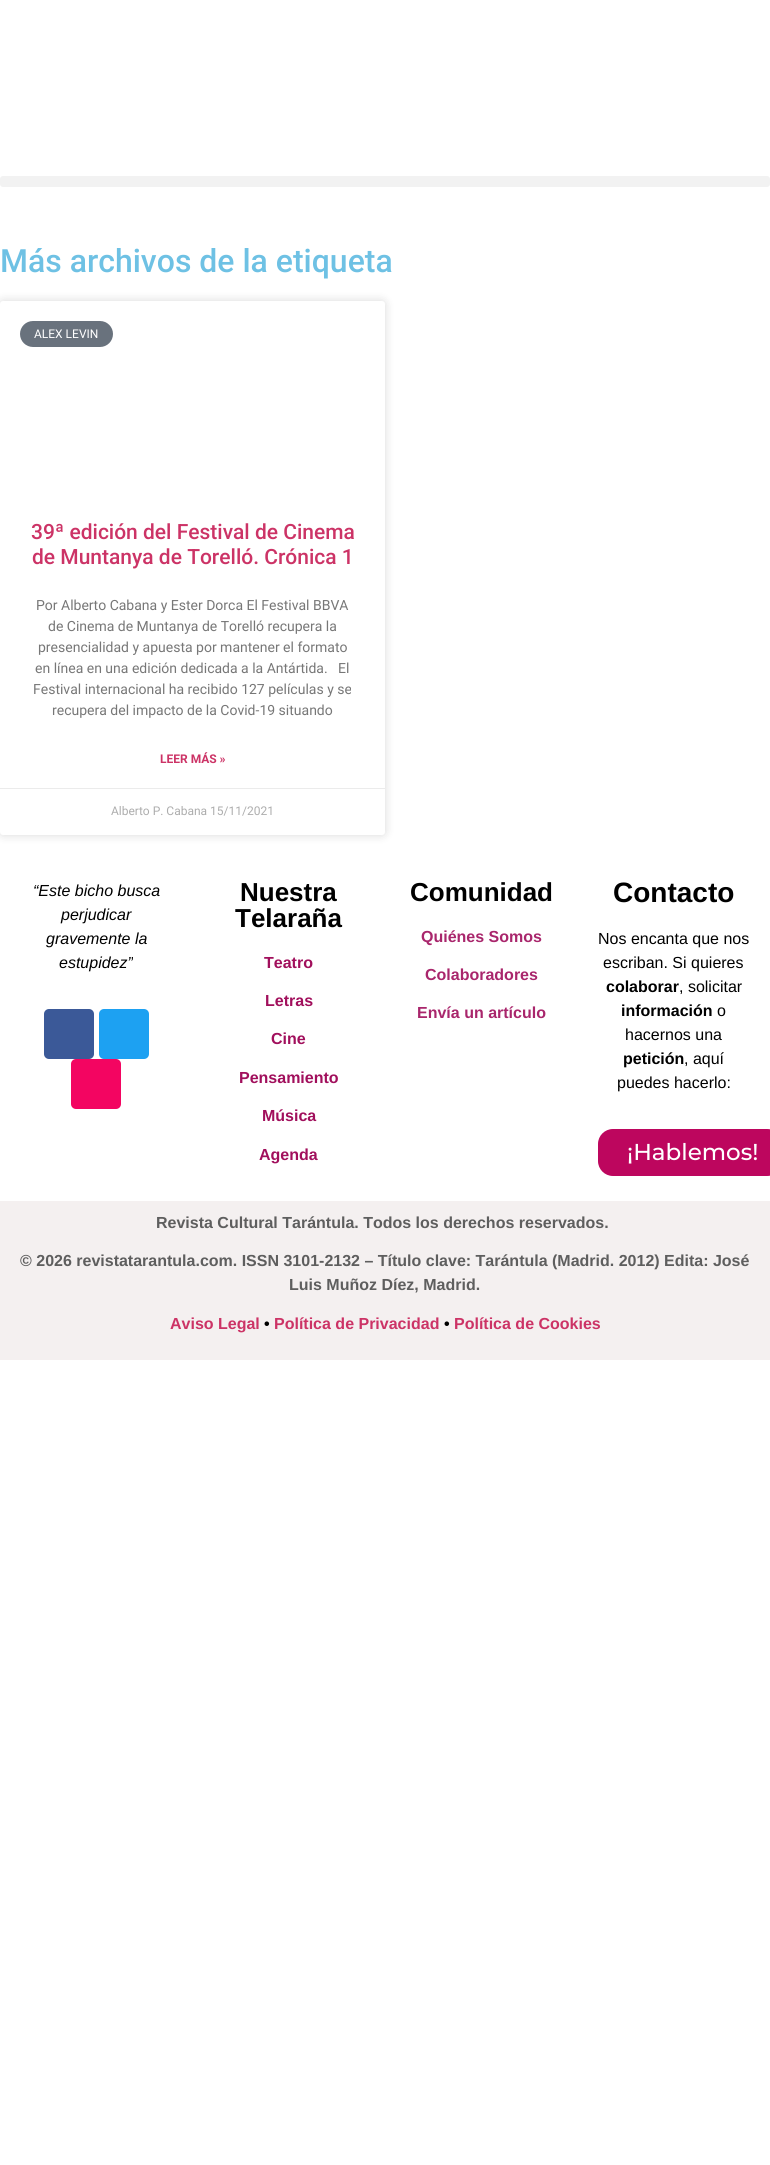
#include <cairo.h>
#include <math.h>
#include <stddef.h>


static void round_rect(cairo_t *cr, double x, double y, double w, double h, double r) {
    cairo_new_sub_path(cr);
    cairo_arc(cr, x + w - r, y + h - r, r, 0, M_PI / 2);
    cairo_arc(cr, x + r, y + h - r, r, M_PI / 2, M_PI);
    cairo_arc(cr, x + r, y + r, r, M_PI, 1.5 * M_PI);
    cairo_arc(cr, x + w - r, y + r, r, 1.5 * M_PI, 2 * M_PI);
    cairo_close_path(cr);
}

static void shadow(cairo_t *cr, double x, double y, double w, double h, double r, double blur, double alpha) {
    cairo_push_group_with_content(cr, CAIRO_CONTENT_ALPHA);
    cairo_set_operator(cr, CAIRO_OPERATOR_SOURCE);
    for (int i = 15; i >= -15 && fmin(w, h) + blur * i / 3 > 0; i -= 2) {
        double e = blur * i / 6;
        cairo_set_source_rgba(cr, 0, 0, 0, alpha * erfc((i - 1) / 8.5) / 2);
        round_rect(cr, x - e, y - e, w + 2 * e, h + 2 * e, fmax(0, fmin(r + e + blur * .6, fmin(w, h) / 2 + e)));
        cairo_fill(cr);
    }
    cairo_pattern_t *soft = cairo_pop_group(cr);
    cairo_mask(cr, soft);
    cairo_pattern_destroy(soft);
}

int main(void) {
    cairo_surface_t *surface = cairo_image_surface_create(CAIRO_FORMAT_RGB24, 770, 2165);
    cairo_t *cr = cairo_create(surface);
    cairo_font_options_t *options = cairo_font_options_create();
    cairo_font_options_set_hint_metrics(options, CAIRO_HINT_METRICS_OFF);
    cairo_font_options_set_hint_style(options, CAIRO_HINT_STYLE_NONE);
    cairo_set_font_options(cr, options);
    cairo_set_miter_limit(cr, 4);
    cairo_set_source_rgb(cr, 1, 1, 1);
    cairo_paint(cr);
    cairo_set_source_rgb(cr, 0.949, 0.949, 0.949);
    round_rect(cr, 0, 176, 770, 11, 3);
    cairo_fill(cr);
    cairo_select_font_face(cr, "Roboto Medium", CAIRO_FONT_SLANT_NORMAL, CAIRO_FONT_WEIGHT_NORMAL);
    cairo_set_font_size(cr, 32);
    cairo_set_source_rgb(cr, 0.431, 0.757, 0.894);
    cairo_move_to(cr, 0, 272);
    cairo_show_text(cr, "Más archivos de la etiqueta");
    cairo_set_source_rgb(cr, 0, 0, 0);
    shadow(cr, 0, 301, 385, 534, 3, 5, 0.15);
    cairo_set_source_rgb(cr, 1, 1, 1);
    round_rect(cr, 0, 301, 385, 534, 3);
    cairo_fill(cr);
    cairo_set_source_rgb(cr, 0.412, 0.447, 0.49);
    round_rect(cr, 20, 321, 93, 26, 13);
    cairo_fill(cr);
    cairo_select_font_face(cr, "Roboto", CAIRO_FONT_SLANT_NORMAL, CAIRO_FONT_WEIGHT_NORMAL);
    cairo_set_font_size(cr, 12);
    cairo_set_source_rgb(cr, 1, 1, 1);
    cairo_move_to(cr, 34, 338);
    cairo_show_text(cr, "ALEX LEVIN");
    cairo_select_font_face(cr, "Roboto Medium", CAIRO_FONT_SLANT_NORMAL, CAIRO_FONT_WEIGHT_NORMAL);
    cairo_set_font_size(cr, 21);
    cairo_set_source_rgb(cr, 0.8, 0.2, 0.4);
    cairo_move_to(cr, 31, 539);
    cairo_show_text(cr, "39ª edición del Festival de Cinema");
    cairo_move_to(cr, 32, 564);
    cairo_show_text(cr, "de Muntanya de Torelló. Crónica 1");
    cairo_select_font_face(cr, "Roboto", CAIRO_FONT_SLANT_NORMAL, CAIRO_FONT_WEIGHT_NORMAL);
    cairo_set_font_size(cr, 14);
    cairo_set_source_rgb(cr, 0.467, 0.467, 0.467);
    cairo_move_to(cr, 36, 610);
    cairo_show_text(cr, "Por Alberto Cabana y Ester Dorca El Festival BBVA");
    cairo_move_to(cr, 48, 631);
    cairo_show_text(cr, "de Cinema de Muntanya de Torelló recupera la");
    cairo_move_to(cr, 38, 652);
    cairo_show_text(cr, "presencialidad y apuesta por mantener el formato");
    cairo_move_to(cr, 35, 673);
    cairo_show_text(cr, "en línea en una edición dedicada a la Antártida.   El");
    cairo_move_to(cr, 33, 694);
    cairo_show_text(cr, "Festival internacional ha recibido 127 películas y se");
    cairo_move_to(cr, 52, 715);
    cairo_show_text(cr, "recupera del impacto de la Covid-19 situando");
    cairo_select_font_face(cr, "Roboto", CAIRO_FONT_SLANT_NORMAL, CAIRO_FONT_WEIGHT_BOLD);
    cairo_set_font_size(cr, 12);
    cairo_set_source_rgb(cr, 0.8, 0.2, 0.4);
    cairo_move_to(cr, 160, 763);
    cairo_show_text(cr, "LEER MÁS »");
    cairo_set_source_rgb(cr, 0.918, 0.918, 0.918);
    cairo_rectangle(cr, 0, 788, 385, 1);
    cairo_fill(cr);
    cairo_select_font_face(cr, "Roboto", CAIRO_FONT_SLANT_NORMAL, CAIRO_FONT_WEIGHT_NORMAL);
    cairo_set_source_rgb(cr, 0.678, 0.678, 0.678);
    cairo_move_to(cr, 111, 815);
    cairo_show_text(cr, "Alberto P. Cabana 15/11/2021");
    cairo_select_font_face(cr, "Liberation Sans", CAIRO_FONT_SLANT_ITALIC, CAIRO_FONT_WEIGHT_NORMAL);
    cairo_set_font_size(cr, 16);
    cairo_set_source_rgb(cr, 0, 0, 0);
    cairo_move_to(cr, 33, 896);
    cairo_show_text(cr, "“Este bicho busca");
    cairo_move_to(cr, 61, 920);
    cairo_show_text(cr, "perjudicar");
    cairo_move_to(cr, 46, 944);
    cairo_show_text(cr, "gravemente la");
    cairo_move_to(cr, 59, 968);
    cairo_show_text(cr, "estupidez”");
    cairo_set_source_rgb(cr, 0.231, 0.349, 0.596);
    round_rect(cr, 44, 1009, 50, 50, 5);
    cairo_fill(cr);
    cairo_set_source_rgb(cr, 0.114, 0.631, 0.949);
    round_rect(cr, 99, 1009, 50, 50, 5);
    cairo_fill(cr);
    cairo_set_source_rgb(cr, 0.953, 0.02, 0.38);
    round_rect(cr, 71, 1059, 50, 50, 5);
    cairo_fill(cr);
    cairo_select_font_face(cr, "Liberation Sans", CAIRO_FONT_SLANT_NORMAL, CAIRO_FONT_WEIGHT_BOLD);
    cairo_set_font_size(cr, 26);
    cairo_set_source_rgb(cr, 0, 0, 0);
    cairo_move_to(cr, 240, 901);
    cairo_show_text(cr, "Nuestra");
    cairo_move_to(cr, 235, 927);
    cairo_show_text(cr, "Telaraña");
    cairo_set_font_size(cr, 16);
    cairo_set_source_rgb(cr, 0.631, 0.059, 0.361);
    cairo_move_to(cr, 264, 968);
    cairo_show_text(cr, "Teatro");
    cairo_move_to(cr, 265, 1006);
    cairo_show_text(cr, "Letras");
    cairo_move_to(cr, 271, 1044);
    cairo_show_text(cr, "Cine");
    cairo_move_to(cr, 239, 1083);
    cairo_show_text(cr, "Pensamiento");
    cairo_move_to(cr, 262, 1121);
    cairo_show_text(cr, "Música");
    cairo_move_to(cr, 259, 1160);
    cairo_show_text(cr, "Agenda");
    cairo_set_font_size(cr, 26);
    cairo_set_source_rgb(cr, 0, 0, 0);
    cairo_move_to(cr, 410, 901);
    cairo_show_text(cr, "Comunidad");
    cairo_set_font_size(cr, 16);
    cairo_set_source_rgb(cr, 0.663, 0.149, 0.424);
    cairo_move_to(cr, 421, 942);
    cairo_show_text(cr, "Quiénes Somos");
    cairo_move_to(cr, 425, 980);
    cairo_show_text(cr, "Colaboradores");
    cairo_move_to(cr, 417, 1018);
    cairo_show_text(cr, "Envía un artículo");
    cairo_set_font_size(cr, 28);
    cairo_set_source_rgb(cr, 0, 0, 0);
    cairo_move_to(cr, 613, 902);
    cairo_show_text(cr, "Contacto");
    cairo_select_font_face(cr, "Liberation Sans", CAIRO_FONT_SLANT_NORMAL, CAIRO_FONT_WEIGHT_NORMAL);
    cairo_set_font_size(cr, 16);
    cairo_move_to(cr, 598, 944);
    cairo_show_text(cr, "Nos encanta que nos");
    cairo_move_to(cr, 603, 968);
    cairo_show_text(cr, "escriban. Si quieres");
    cairo_select_font_face(cr, "Liberation Sans", CAIRO_FONT_SLANT_NORMAL, CAIRO_FONT_WEIGHT_BOLD);
    cairo_move_to(cr, 606, 992);
    cairo_show_text(cr, "colaborar");
    cairo_select_font_face(cr, "Liberation Sans", CAIRO_FONT_SLANT_NORMAL, CAIRO_FONT_WEIGHT_NORMAL);
    cairo_move_to(cr, 679, 992);
    cairo_show_text(cr, ", solicitar");
    cairo_select_font_face(cr, "Liberation Sans", CAIRO_FONT_SLANT_NORMAL, CAIRO_FONT_WEIGHT_BOLD);
    cairo_move_to(cr, 621, 1016);
    cairo_show_text(cr, "información");
    cairo_select_font_face(cr, "Liberation Sans", CAIRO_FONT_SLANT_NORMAL, CAIRO_FONT_WEIGHT_NORMAL);
    cairo_move_to(cr, 717, 1016);
    cairo_show_text(cr, "o");
    cairo_move_to(cr, 625, 1040);
    cairo_show_text(cr, "hacernos una");
    cairo_select_font_face(cr, "Liberation Sans", CAIRO_FONT_SLANT_NORMAL, CAIRO_FONT_WEIGHT_BOLD);
    cairo_move_to(cr, 623, 1064);
    cairo_show_text(cr, "petición");
    cairo_select_font_face(cr, "Liberation Sans", CAIRO_FONT_SLANT_NORMAL, CAIRO_FONT_WEIGHT_NORMAL);
    cairo_move_to(cr, 684, 1064);
    cairo_show_text(cr, ", aquí");
    cairo_move_to(cr, 617, 1088);
    cairo_show_text(cr, "puedes hacerlo:");
    cairo_set_source_rgb(cr, 0.741, 0.024, 0.369);
    round_rect(cr, 598, 1129, 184, 47, 15);
    cairo_fill(cr);
    cairo_select_font_face(cr, "Montserrat Medium", CAIRO_FONT_SLANT_NORMAL, CAIRO_FONT_WEIGHT_NORMAL);
    cairo_set_font_size(cr, 23);
    cairo_set_source_rgb(cr, 1, 1, 1);
    cairo_move_to(cr, 627, 1160);
    cairo_show_text(cr, "¡Hablemos!");
    cairo_set_source_rgb(cr, 0.957, 0.941, 0.941);
    cairo_rectangle(cr, 0, 1201, 770, 159);
    cairo_fill(cr);
    cairo_select_font_face(cr, "Liberation Sans", CAIRO_FONT_SLANT_NORMAL, CAIRO_FONT_WEIGHT_BOLD);
    cairo_set_font_size(cr, 16);
    cairo_set_source_rgb(cr, 0.369, 0.369, 0.369);
    cairo_move_to(cr, 156, 1228);
    cairo_show_text(cr, "Revista Cultural Tarántula. Todos los derechos reservados.");
    cairo_move_to(cr, 20, 1266);
    cairo_show_text(cr, "© 2026 revistatarantula.com. ISSN 3101-2132 – Título clave: Tarántula (Madrid. 2012) Edita: José");
    cairo_move_to(cr, 289, 1290);
    cairo_show_text(cr, "Luis Muñoz Díez, Madrid.");
    cairo_set_source_rgb(cr, 0.8, 0.2, 0.4);
    cairo_move_to(cr, 170, 1329);
    cairo_show_text(cr, "Aviso Legal");
    cairo_set_source_rgb(cr, 0, 0, 0);
    cairo_move_to(cr, 264, 1329);
    cairo_show_text(cr, "•");
    cairo_set_source_rgb(cr, 0.8, 0.2, 0.4);
    cairo_move_to(cr, 274, 1329);
    cairo_show_text(cr, "Política de Privacidad");
    cairo_set_source_rgb(cr, 0, 0, 0);
    cairo_move_to(cr, 444, 1329);
    cairo_show_text(cr, "•");
    cairo_set_source_rgb(cr, 0.8, 0.2, 0.4);
    cairo_move_to(cr, 454, 1329);
    cairo_show_text(cr, "Política de Cookies");
    cairo_surface_write_to_png(surface, "page.png");
    cairo_font_options_destroy(options);
    cairo_destroy(cr);
    cairo_surface_destroy(surface);
    return 0;
}
